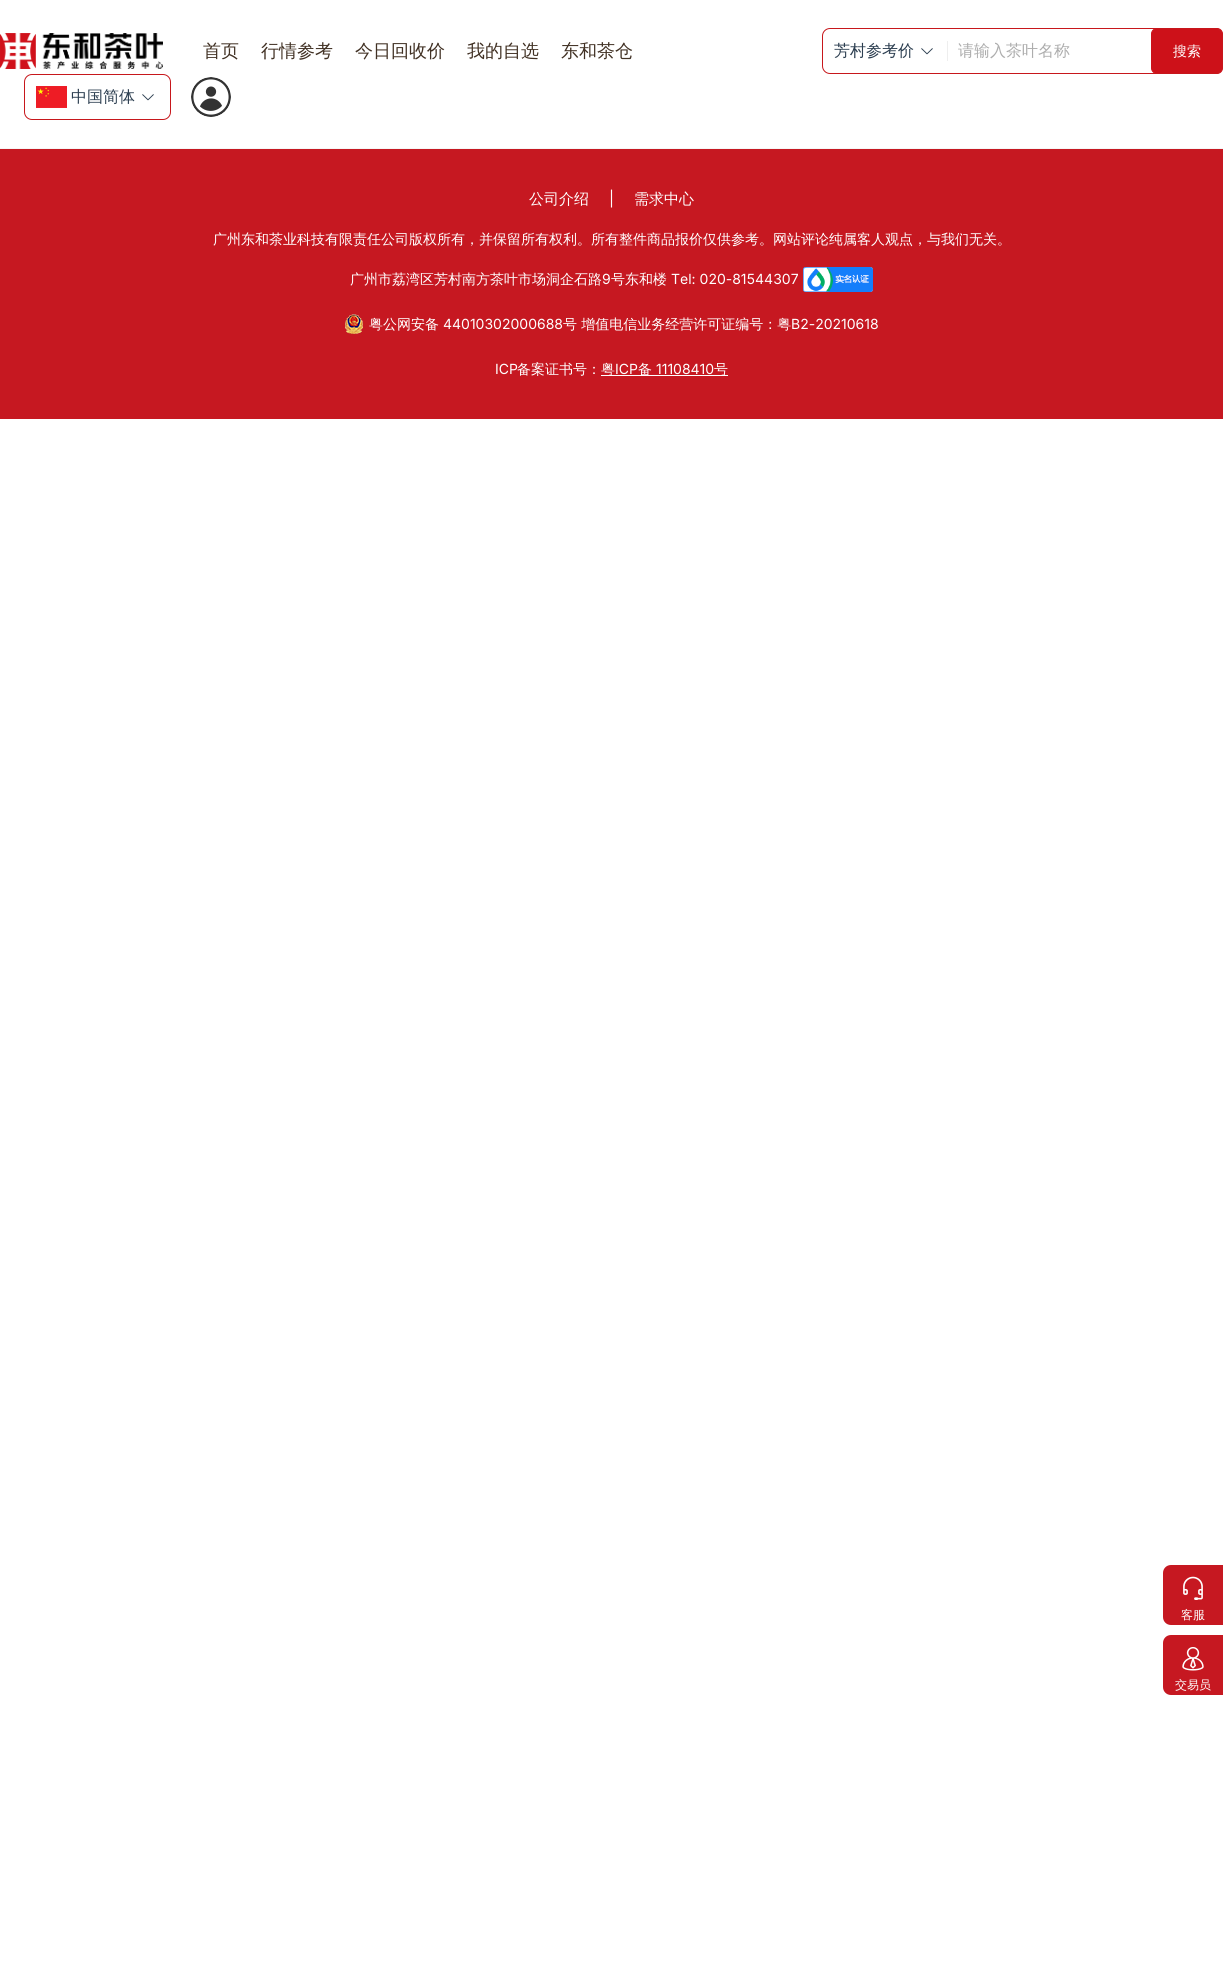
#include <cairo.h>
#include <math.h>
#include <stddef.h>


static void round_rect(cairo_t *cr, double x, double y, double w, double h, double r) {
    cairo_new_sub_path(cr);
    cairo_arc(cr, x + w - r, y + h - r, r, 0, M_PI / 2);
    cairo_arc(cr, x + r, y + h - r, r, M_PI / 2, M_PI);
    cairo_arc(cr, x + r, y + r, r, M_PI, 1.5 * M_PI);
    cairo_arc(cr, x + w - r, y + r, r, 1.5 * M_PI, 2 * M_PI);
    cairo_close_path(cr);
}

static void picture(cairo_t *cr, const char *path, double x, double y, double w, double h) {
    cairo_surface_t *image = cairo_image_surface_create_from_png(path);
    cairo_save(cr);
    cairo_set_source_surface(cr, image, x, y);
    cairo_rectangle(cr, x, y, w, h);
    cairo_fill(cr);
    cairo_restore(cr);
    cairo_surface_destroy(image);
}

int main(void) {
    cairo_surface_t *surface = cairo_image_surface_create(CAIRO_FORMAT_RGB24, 1223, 1970);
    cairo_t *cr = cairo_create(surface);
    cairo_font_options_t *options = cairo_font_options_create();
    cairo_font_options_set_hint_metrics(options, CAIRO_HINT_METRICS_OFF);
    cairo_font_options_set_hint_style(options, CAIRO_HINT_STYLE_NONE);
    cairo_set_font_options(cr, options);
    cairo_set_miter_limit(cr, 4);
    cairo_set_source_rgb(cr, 1, 1, 1);
    cairo_paint(cr);
    cairo_set_source_rgb(cr, 0.961, 0.961, 0.961);
    cairo_rectangle(cr, 0, 148, 1223, 1);
    cairo_fill(cr);
    picture(cr, "img1.png", 0, 33, 163, 36);
    cairo_select_font_face(cr, "WenQuanYi Zen Hei Medium", CAIRO_FONT_SLANT_NORMAL, CAIRO_FONT_WEIGHT_NORMAL);
    cairo_set_font_size(cr, 18);
    cairo_set_source_rgb(cr, 0.255, 0.192, 0.141);
    cairo_move_to(cr, 203, 57);
    cairo_show_text(cr, "首页");
    cairo_move_to(cr, 261, 57);
    cairo_show_text(cr, "行情参考");
    cairo_move_to(cr, 355, 57);
    cairo_show_text(cr, "今日回收价");
    cairo_move_to(cr, 467, 57);
    cairo_show_text(cr, "我的自选");
    cairo_move_to(cr, 561, 57);
    cairo_show_text(cr, "东和茶仓");
    picture(cr, "img2.png", 921, 48, 12, 7);
    cairo_set_source_rgb(cr, 0.933, 0.933, 0.933);
    cairo_rectangle(cr, 947, 41, 1, 20);
    cairo_fill(cr);
    cairo_set_source_rgb(cr, 0.804, 0.067, 0.098);
    round_rect(cr, 1151.5, 28.5, 71, 45, 5.5);
    cairo_fill_preserve(cr);
    cairo_set_line_width(cr, 1);
    cairo_stroke(cr);
    round_rect(cr, 822.5, 28.5, 400, 45, 7.5);
    cairo_set_source_rgb(cr, 0.78, 0.09, 0.11);
    cairo_stroke(cr);
    cairo_set_font_size(cr, 16);
    cairo_set_source_rgb(cr, 0.173, 0.243, 0.314);
    cairo_move_to(cr, 834, 56);
    cairo_show_text(cr, "芳村参考价");
    cairo_set_source_rgb(cr, 0.678, 0.678, 0.678);
    cairo_move_to(cr, 958, 56);
    cairo_show_text(cr, "请输入茶叶名称");
    cairo_set_font_size(cr, 14);
    cairo_set_source_rgb(cr, 1, 1, 1);
    cairo_move_to(cr, 1173, 56);
    cairo_show_text(cr, "搜索");
    picture(cr, "img3.png", 36, 86, 31, 22);
    picture(cr, "img2.png", 142, 94, 12, 7);
    round_rect(cr, 24.5, 74.5, 146, 45, 7.5);
    cairo_set_source_rgb(cr, 0.78, 0.09, 0.11);
    cairo_stroke(cr);
    cairo_set_font_size(cr, 16);
    cairo_set_source_rgb(cr, 0.173, 0.243, 0.314);
    cairo_move_to(cr, 71, 102);
    cairo_show_text(cr, "中国简体");
    picture(cr, "img4.png", 191, 77, 40, 40);
    cairo_set_source_rgb(cr, 0.776, 0.094, 0.129);
    cairo_rectangle(cr, 0, 149, 1223, 270);
    cairo_fill(cr);
    cairo_set_font_size(cr, 15);
    cairo_set_source_rgb(cr, 1, 1, 1);
    cairo_move_to(cr, 529, 204);
    cairo_show_text(cr, "公司介绍");
    cairo_select_font_face(cr, "Inter", CAIRO_FONT_SLANT_NORMAL, CAIRO_FONT_WEIGHT_NORMAL);
    cairo_move_to(cr, 609, 204);
    cairo_show_text(cr, "|");
    cairo_select_font_face(cr, "WenQuanYi Zen Hei Medium", CAIRO_FONT_SLANT_NORMAL, CAIRO_FONT_WEIGHT_NORMAL);
    cairo_move_to(cr, 634, 204);
    cairo_show_text(cr, "需求中心");
    cairo_set_font_size(cr, 14);
    cairo_move_to(cr, 213, 244);
    cairo_show_text(cr, "广州东和茶业科技有限责任公司版权所有，并保留所有权利。所有整件商品报价仅供参考。网站评论纯属客人观点，与我们无关。");
    cairo_move_to(cr, 350, 284);
    cairo_show_text(cr, "广州市荔湾区芳村南方茶叶市场洞企石路");
    cairo_select_font_face(cr, "Inter", CAIRO_FONT_SLANT_NORMAL, CAIRO_FONT_WEIGHT_NORMAL);
    cairo_move_to(cr, 602, 284);
    cairo_show_text(cr, "9");
    cairo_select_font_face(cr, "WenQuanYi Zen Hei Medium", CAIRO_FONT_SLANT_NORMAL, CAIRO_FONT_WEIGHT_NORMAL);
    cairo_move_to(cr, 611, 284);
    cairo_show_text(cr, "号东和楼");
    cairo_select_font_face(cr, "Inter", CAIRO_FONT_SLANT_NORMAL, CAIRO_FONT_WEIGHT_NORMAL);
    cairo_move_to(cr, 671, 284);
    cairo_show_text(cr, "Tel: 020-81544307");
    picture(cr, "img5.png", 803, 267, 70, 25);
    picture(cr, "img6.png", 345, 314, 18, 20);
    cairo_select_font_face(cr, "WenQuanYi Zen Hei Medium", CAIRO_FONT_SLANT_NORMAL, CAIRO_FONT_WEIGHT_NORMAL);
    cairo_move_to(cr, 369, 329);
    cairo_show_text(cr, "粤公网安备");
    cairo_select_font_face(cr, "Inter", CAIRO_FONT_SLANT_NORMAL, CAIRO_FONT_WEIGHT_NORMAL);
    cairo_move_to(cr, 443, 329);
    cairo_show_text(cr, "44010302000688");
    cairo_select_font_face(cr, "WenQuanYi Zen Hei Medium", CAIRO_FONT_SLANT_NORMAL, CAIRO_FONT_WEIGHT_NORMAL);
    cairo_move_to(cr, 563, 329);
    cairo_show_text(cr, "号 增值电信业务经营许可证编号：粤");
    cairo_select_font_face(cr, "Inter", CAIRO_FONT_SLANT_NORMAL, CAIRO_FONT_WEIGHT_NORMAL);
    cairo_move_to(cr, 791, 329);
    cairo_show_text(cr, "B2-20210618");
    cairo_move_to(cr, 495, 374);
    cairo_show_text(cr, "ICP");
    cairo_select_font_face(cr, "WenQuanYi Zen Hei Medium", CAIRO_FONT_SLANT_NORMAL, CAIRO_FONT_WEIGHT_NORMAL);
    cairo_move_to(cr, 517, 374);
    cairo_show_text(cr, "备案证书号：");
    cairo_rectangle(cr, 601, 375, 127, 1);
    cairo_fill(cr);
    cairo_move_to(cr, 601, 374);
    cairo_show_text(cr, "粤");
    cairo_select_font_face(cr, "Inter", CAIRO_FONT_SLANT_NORMAL, CAIRO_FONT_WEIGHT_NORMAL);
    cairo_move_to(cr, 615, 374);
    cairo_show_text(cr, "ICP");
    cairo_select_font_face(cr, "WenQuanYi Zen Hei Medium", CAIRO_FONT_SLANT_NORMAL, CAIRO_FONT_WEIGHT_NORMAL);
    cairo_move_to(cr, 638, 374);
    cairo_show_text(cr, "备");
    cairo_select_font_face(cr, "Inter", CAIRO_FONT_SLANT_NORMAL, CAIRO_FONT_WEIGHT_NORMAL);
    cairo_move_to(cr, 656, 374);
    cairo_show_text(cr, "11108410");
    cairo_select_font_face(cr, "WenQuanYi Zen Hei Medium", CAIRO_FONT_SLANT_NORMAL, CAIRO_FONT_WEIGHT_NORMAL);
    cairo_move_to(cr, 714, 374);
    cairo_show_text(cr, "号");
    cairo_set_source_rgb(cr, 0.776, 0.094, 0.129);
    cairo_new_path(cr);
    cairo_move_to(cr, 1171, 1565);
    cairo_line_to(cr, 1223, 1565);
    cairo_line_to(cr, 1223, 1625);
    cairo_line_to(cr, 1171, 1625);
    cairo_curve_to(cr, 1166.5, 1625, 1163, 1621.5, 1163, 1617);
    cairo_line_to(cr, 1163, 1573);
    cairo_curve_to(cr, 1163, 1568.5, 1166.5, 1565, 1171, 1565);
    cairo_close_path(cr);
    cairo_fill(cr);
    picture(cr, "img7.png", 1183, 1576, 20, 24);
    cairo_set_font_size(cr, 12);
    cairo_set_source_rgb(cr, 1, 1, 1);
    cairo_move_to(cr, 1181, 1619);
    cairo_show_text(cr, "客服");
    cairo_set_source_rgb(cr, 0.776, 0.094, 0.129);
    cairo_new_path(cr);
    cairo_move_to(cr, 1171, 1635);
    cairo_line_to(cr, 1223, 1635);
    cairo_line_to(cr, 1223, 1695);
    cairo_line_to(cr, 1171, 1695);
    cairo_curve_to(cr, 1166.5, 1695, 1163, 1691.5, 1163, 1687);
    cairo_line_to(cr, 1163, 1643);
    cairo_curve_to(cr, 1163, 1638.5, 1166.5, 1635, 1171, 1635);
    cairo_close_path(cr);
    cairo_fill(cr);
    picture(cr, "img8.png", 1182, 1647, 22, 24);
    cairo_set_source_rgb(cr, 1, 1, 1);
    cairo_move_to(cr, 1175, 1689);
    cairo_show_text(cr, "交易员");
    cairo_surface_write_to_png(surface, "page.png");
    cairo_font_options_destroy(options);
    cairo_destroy(cr);
    cairo_surface_destroy(surface);
    return 0;
}
